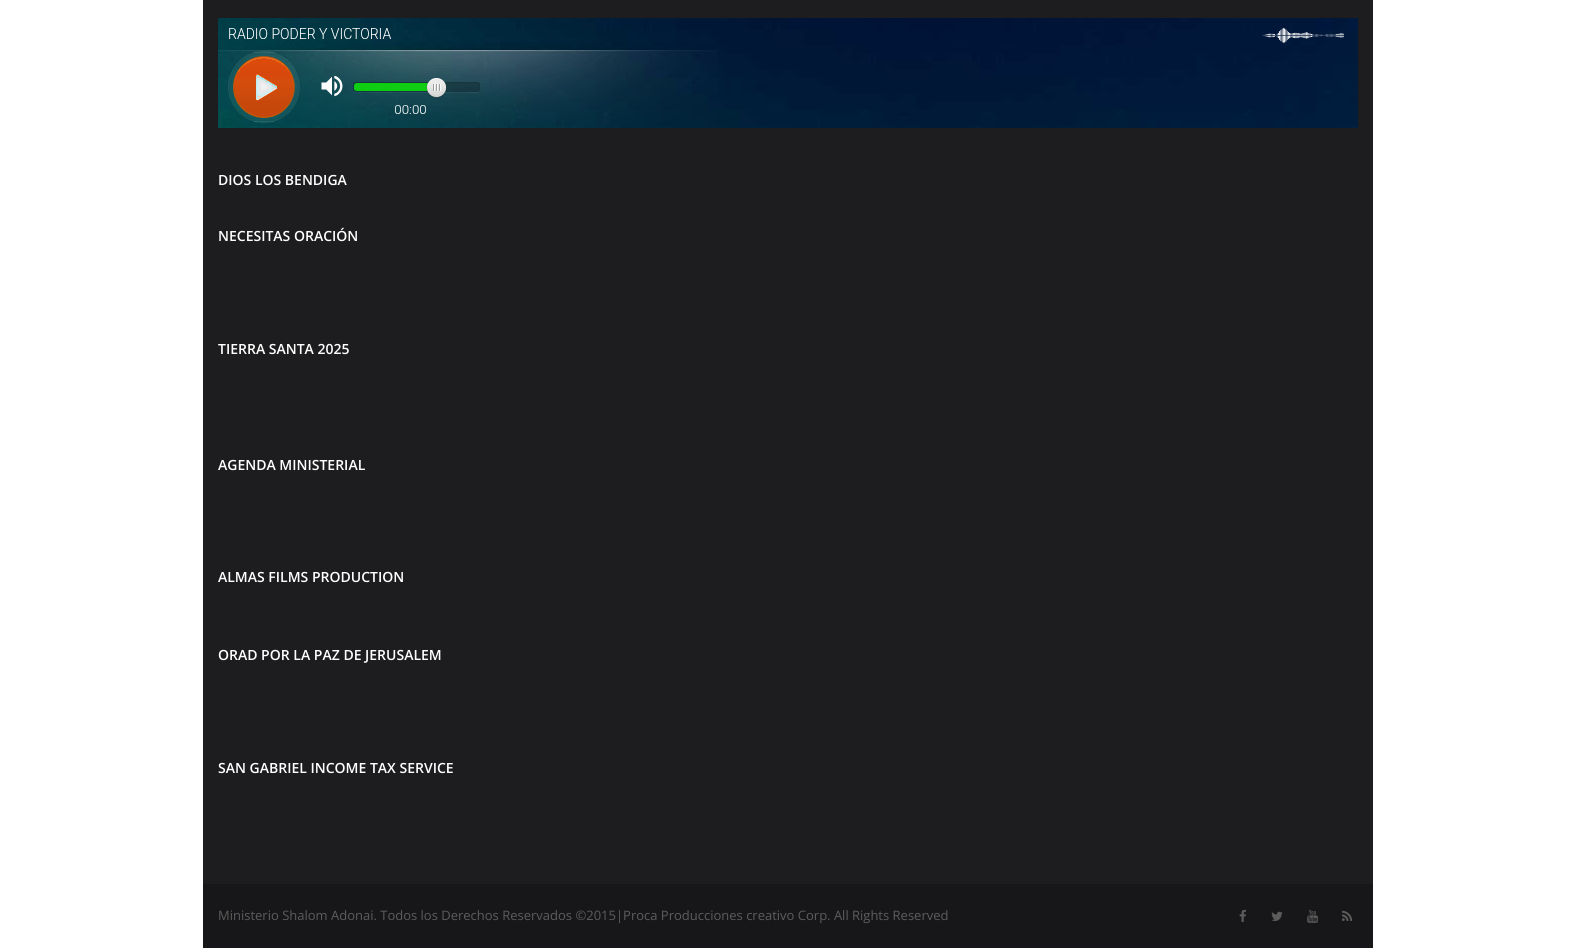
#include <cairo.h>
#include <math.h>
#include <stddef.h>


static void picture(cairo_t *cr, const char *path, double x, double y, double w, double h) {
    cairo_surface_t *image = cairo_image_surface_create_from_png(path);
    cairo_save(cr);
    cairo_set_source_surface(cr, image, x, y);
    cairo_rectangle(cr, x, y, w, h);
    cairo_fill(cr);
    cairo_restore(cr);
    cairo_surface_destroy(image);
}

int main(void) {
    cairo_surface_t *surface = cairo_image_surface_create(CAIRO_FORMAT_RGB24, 1575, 948);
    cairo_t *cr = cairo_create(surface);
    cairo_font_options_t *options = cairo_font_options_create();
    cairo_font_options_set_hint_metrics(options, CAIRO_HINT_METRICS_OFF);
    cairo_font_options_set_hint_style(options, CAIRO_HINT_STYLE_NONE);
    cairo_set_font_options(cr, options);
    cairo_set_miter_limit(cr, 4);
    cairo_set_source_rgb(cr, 1, 1, 1);
    cairo_paint(cr);
    cairo_set_source_rgb(cr, 0.114, 0.114, 0.122);
    cairo_rectangle(cr, 203, 0, 1170, 884);
    cairo_fill(cr);
    picture(cr, "img1.png", 218, 18, 1140, 110);
    cairo_select_font_face(cr, "Open Sans SemiBold", CAIRO_FONT_SLANT_NORMAL, CAIRO_FONT_WEIGHT_NORMAL);
    cairo_set_font_size(cr, 14);
    cairo_set_source_rgb(cr, 1, 1, 1);
    cairo_move_to(cr, 218, 185);
    cairo_show_text(cr, "DIOS LOS BENDIGA");
    cairo_move_to(cr, 218, 241);
    cairo_show_text(cr, "NECESITAS ORACIÓN");
    cairo_move_to(cr, 218, 354);
    cairo_show_text(cr, "TIERRA SANTA 2025");
    cairo_move_to(cr, 218, 470);
    cairo_show_text(cr, "AGENDA MINISTERIAL");
    cairo_move_to(cr, 218, 582);
    cairo_show_text(cr, "ALMAS FILMS PRODUCTION");
    cairo_move_to(cr, 218, 660);
    cairo_show_text(cr, "ORAD POR LA PAZ DE JERUSALEM");
    cairo_move_to(cr, 218, 773);
    cairo_show_text(cr, "SAN GABRIEL INCOME TAX SERVICE");
    cairo_set_source_rgb(cr, 0.09, 0.09, 0.098);
    cairo_rectangle(cr, 203, 884, 1170, 64);
    cairo_fill(cr);
    cairo_select_font_face(cr, "Open Sans", CAIRO_FONT_SLANT_NORMAL, CAIRO_FONT_WEIGHT_NORMAL);
    cairo_set_font_size(cr, 13);
    cairo_set_source_rgb(cr, 0.361, 0.361, 0.361);
    cairo_move_to(cr, 218, 920);
    cairo_show_text(cr, "Ministerio Shalom Adonai. Todos los Derechos Reservados ©2015|Proca Producciones creativo Corp. All Rights Reserved");
    picture(cr, "img2.png", 1239, 909, 7, 13);
    picture(cr, "img3.png", 1271, 911, 12, 10);
    picture(cr, "img4.png", 1307, 909, 11, 14);
    picture(cr, "img5.png", 1342, 910, 11, 11);
    cairo_surface_write_to_png(surface, "page.png");
    cairo_font_options_destroy(options);
    cairo_destroy(cr);
    cairo_surface_destroy(surface);
    return 0;
}
